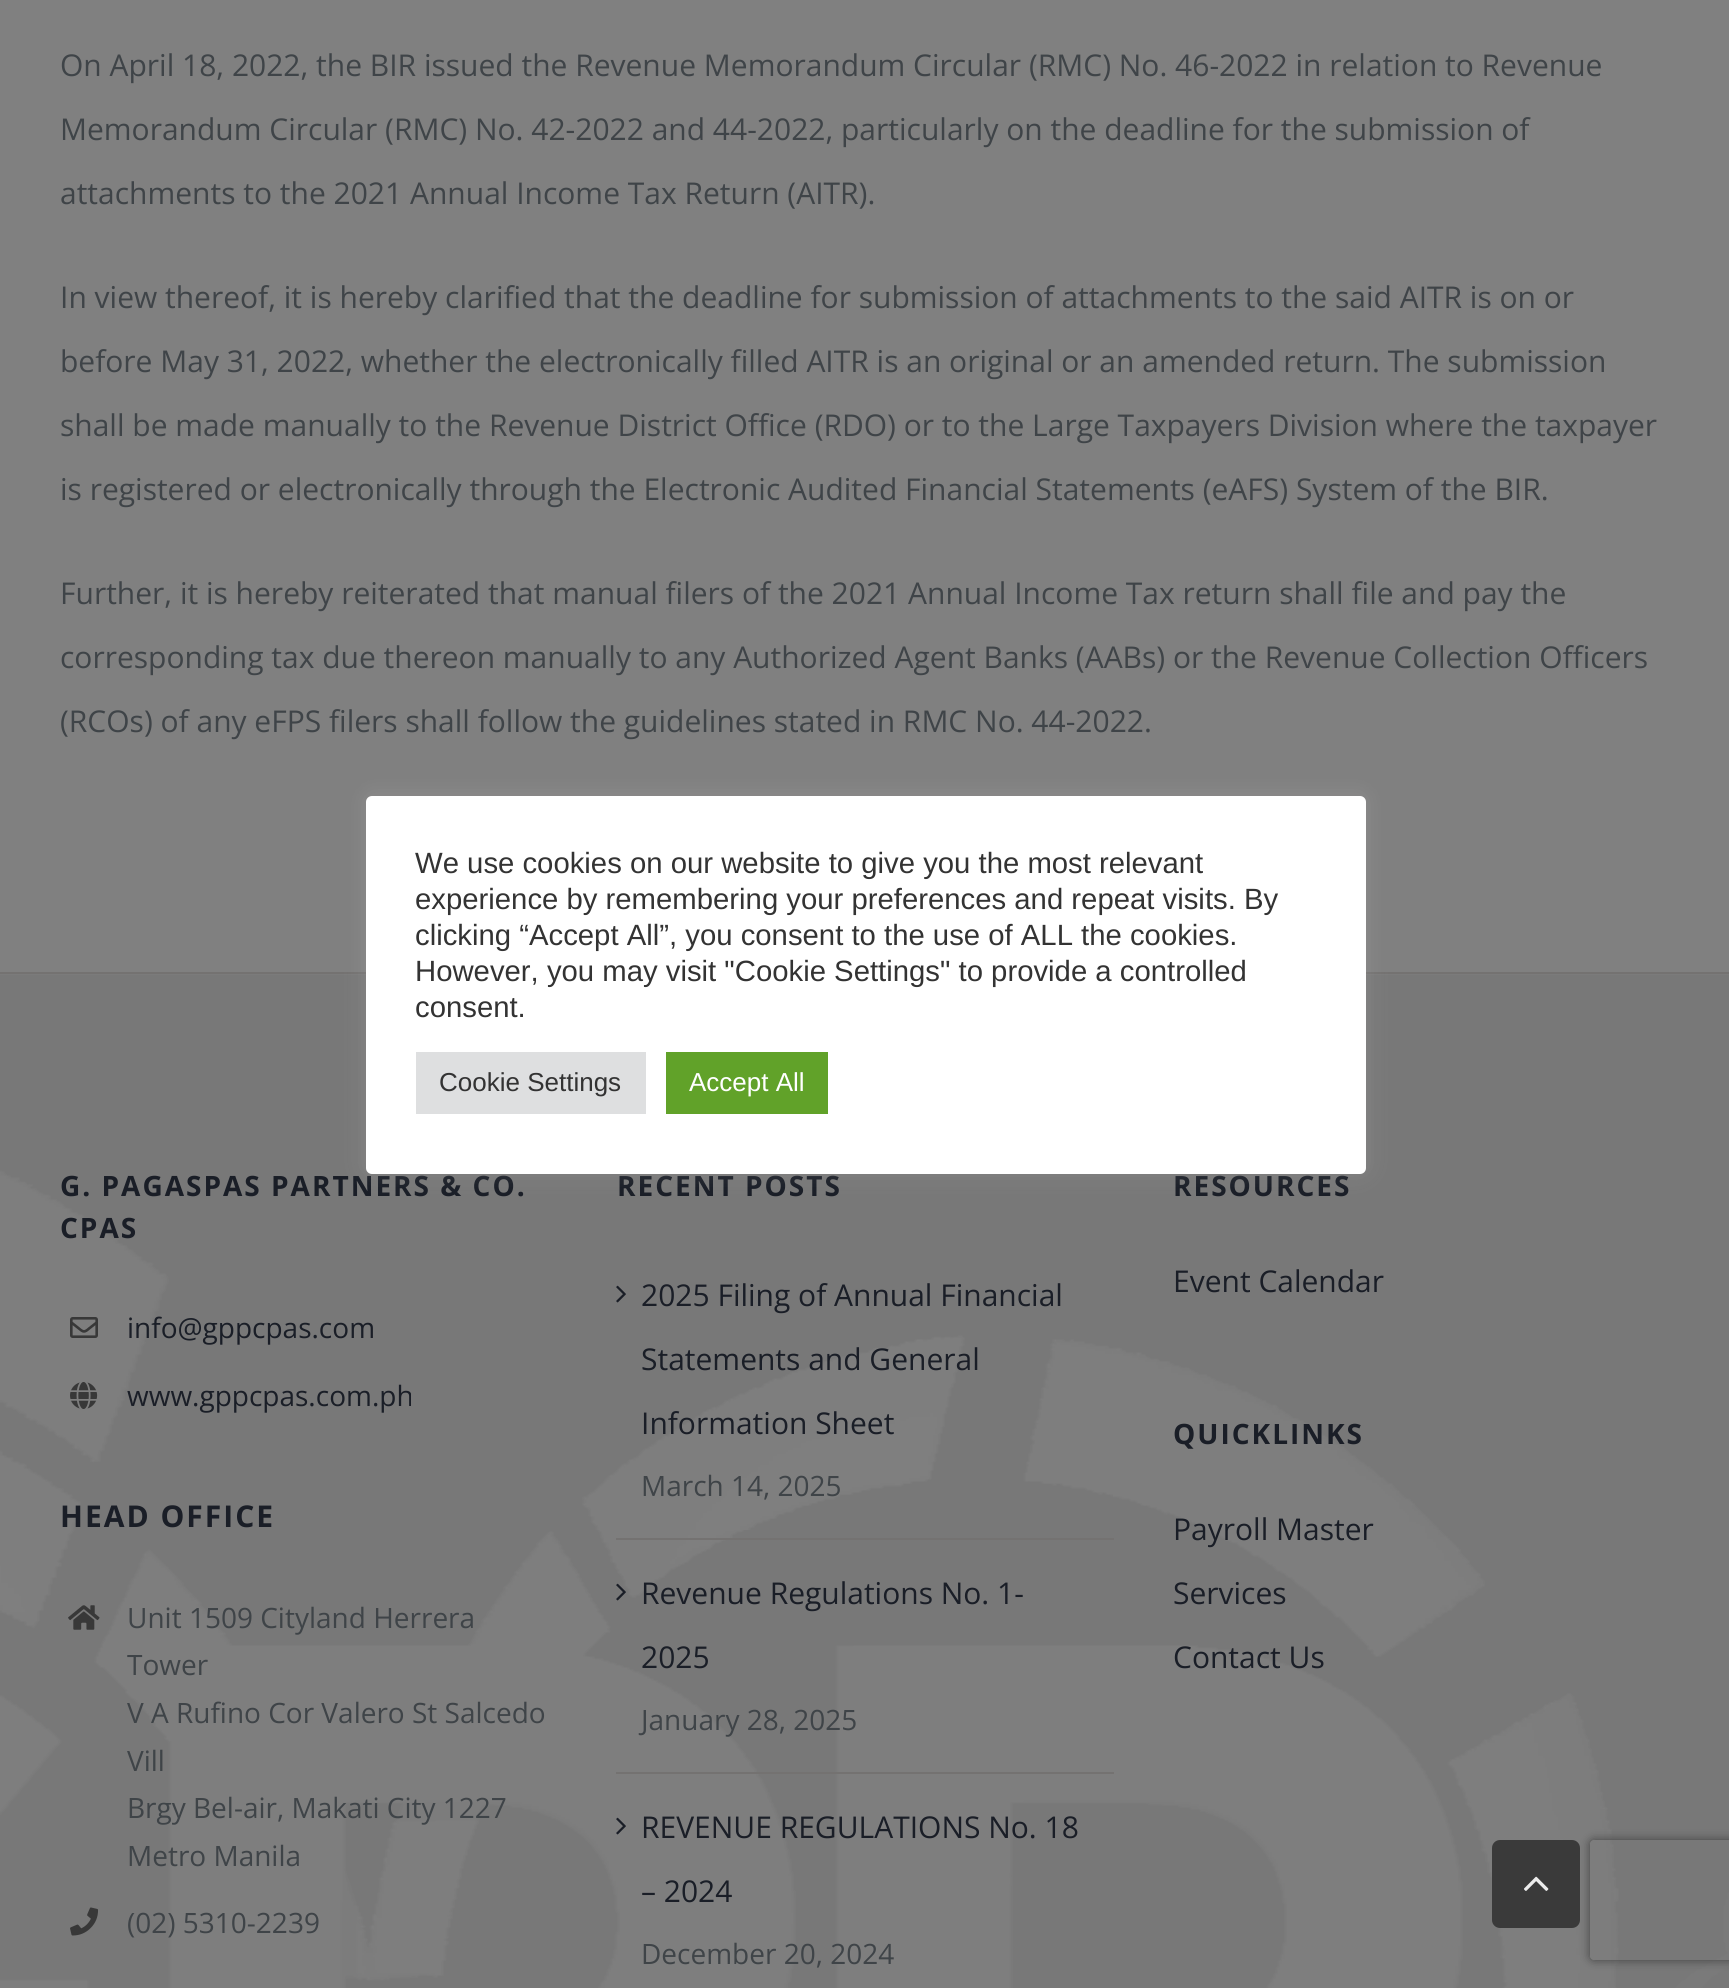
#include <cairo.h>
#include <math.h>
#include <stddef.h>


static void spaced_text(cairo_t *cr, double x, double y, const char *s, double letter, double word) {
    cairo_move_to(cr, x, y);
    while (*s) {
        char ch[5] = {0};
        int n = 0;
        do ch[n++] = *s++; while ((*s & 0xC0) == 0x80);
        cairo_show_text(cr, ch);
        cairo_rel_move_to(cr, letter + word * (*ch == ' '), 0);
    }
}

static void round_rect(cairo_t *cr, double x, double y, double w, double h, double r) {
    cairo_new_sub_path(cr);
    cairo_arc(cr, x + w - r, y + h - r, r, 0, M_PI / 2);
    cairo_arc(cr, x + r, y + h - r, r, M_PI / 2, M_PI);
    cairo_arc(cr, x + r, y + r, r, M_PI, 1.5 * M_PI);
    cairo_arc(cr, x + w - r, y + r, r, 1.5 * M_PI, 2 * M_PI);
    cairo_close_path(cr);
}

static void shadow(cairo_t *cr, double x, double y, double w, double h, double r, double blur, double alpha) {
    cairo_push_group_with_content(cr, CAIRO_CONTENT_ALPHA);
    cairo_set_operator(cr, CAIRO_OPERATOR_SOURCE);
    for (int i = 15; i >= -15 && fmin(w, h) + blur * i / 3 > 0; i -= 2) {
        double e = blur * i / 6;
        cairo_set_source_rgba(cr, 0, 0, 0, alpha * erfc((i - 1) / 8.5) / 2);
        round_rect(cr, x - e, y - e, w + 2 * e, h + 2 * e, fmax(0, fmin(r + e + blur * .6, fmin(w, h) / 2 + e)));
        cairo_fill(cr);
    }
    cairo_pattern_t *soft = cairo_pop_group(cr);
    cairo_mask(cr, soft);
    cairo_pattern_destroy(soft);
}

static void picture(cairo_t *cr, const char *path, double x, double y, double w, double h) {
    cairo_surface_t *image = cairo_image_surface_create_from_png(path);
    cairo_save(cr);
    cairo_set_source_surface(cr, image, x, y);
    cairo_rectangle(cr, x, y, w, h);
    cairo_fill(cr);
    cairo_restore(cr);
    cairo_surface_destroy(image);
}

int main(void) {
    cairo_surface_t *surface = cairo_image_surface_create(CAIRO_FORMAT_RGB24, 1729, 1988);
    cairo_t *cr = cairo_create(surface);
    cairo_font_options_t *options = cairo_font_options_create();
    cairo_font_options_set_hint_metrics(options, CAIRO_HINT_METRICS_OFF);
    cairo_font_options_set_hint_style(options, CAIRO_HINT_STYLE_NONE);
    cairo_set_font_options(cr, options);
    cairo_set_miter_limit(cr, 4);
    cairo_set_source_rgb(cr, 0.502, 0.502, 0.502);
    cairo_paint(cr);
    cairo_select_font_face(cr, "Open Sans", CAIRO_FONT_SLANT_NORMAL, CAIRO_FONT_WEIGHT_NORMAL);
    cairo_set_font_size(cr, 30);
    cairo_set_source_rgb(cr, 0.247, 0.267, 0.282);
    cairo_move_to(cr, 60, 76);
    cairo_show_text(cr, "On April 18, 2022, the BIR issued the Revenue Memorandum Circular (RMC) No. 46-2022 in relation to Revenue");
    cairo_move_to(cr, 60, 140);
    cairo_show_text(cr, "Memorandum Circular (RMC) No. 42-2022 and 44-2022, particularly on the deadline for the submission of");
    cairo_move_to(cr, 60, 204);
    cairo_show_text(cr, "attachments to the 2021 Annual Income Tax Return (AITR).");
    cairo_move_to(cr, 60, 308);
    cairo_show_text(cr, "In view thereof, it is hereby clarified that the deadline for submission of attachments to the said AITR is on or");
    cairo_move_to(cr, 60, 372);
    cairo_show_text(cr, "before May 31, 2022, whether the electronically filled AITR is an original or an amended return. The submission");
    cairo_move_to(cr, 60, 436);
    cairo_show_text(cr, "shall be made manually to the Revenue District Office (RDO) or to the Large Taxpayers Division where the taxpayer");
    cairo_move_to(cr, 60, 500);
    cairo_show_text(cr, "is registered or electronically through the Electronic Audited Financial Statements (eAFS) System of the BIR.");
    cairo_move_to(cr, 60, 604);
    cairo_show_text(cr, "Further, it is hereby reiterated that manual filers of the 2021 Annual Income Tax return shall file and pay the");
    cairo_move_to(cr, 60, 668);
    cairo_show_text(cr, "corresponding tax due thereon manually to any Authorized Agent Banks (AABs) or the Revenue Collection Officers");
    cairo_move_to(cr, 60, 732);
    cairo_show_text(cr, "(RCOs) of any eFPS filers shall follow the guidelines stated in RMC No. 44-2022.");
    picture(cr, "img1.png", 0, 974, 1729, 1014);
    cairo_set_source_rgb(cr, 0.455, 0.447, 0.443);
    cairo_rectangle(cr, 0, 972, 1729, 2);
    cairo_fill(cr);
    cairo_select_font_face(cr, "Open Sans", CAIRO_FONT_SLANT_NORMAL, CAIRO_FONT_WEIGHT_BOLD);
    cairo_set_font_size(cr, 28);
    cairo_set_source_rgb(cr, 0.102, 0.118, 0.153);
    spaced_text(cr, 60, 1196, "G. PAGASPAS PARTNERS & CO.", 2, 0);
    spaced_text(cr, 60, 1238, "CPAS", 2, 0);
    picture(cr, "img2.png", 70, 1317, 28, 21);
    cairo_select_font_face(cr, "Open Sans", CAIRO_FONT_SLANT_NORMAL, CAIRO_FONT_WEIGHT_NORMAL);
    cairo_move_to(cr, 127, 1338);
    cairo_show_text(cr, "info@gppcpas.com");
    picture(cr, "img3.png", 70, 1382, 28, 27);
    cairo_move_to(cr, 127, 1406);
    cairo_show_text(cr, "www.gppcpas.com.ph");
    cairo_select_font_face(cr, "Open Sans", CAIRO_FONT_SLANT_NORMAL, CAIRO_FONT_WEIGHT_BOLD);
    cairo_set_font_size(cr, 30);
    spaced_text(cr, 60, 1527, "HEAD OFFICE", 2, 0);
    picture(cr, "img4.png", 68, 1605, 32, 25);
    cairo_select_font_face(cr, "Open Sans", CAIRO_FONT_SLANT_NORMAL, CAIRO_FONT_WEIGHT_NORMAL);
    cairo_set_font_size(cr, 28);
    cairo_set_source_rgb(cr, 0.247, 0.267, 0.282);
    cairo_move_to(cr, 127, 1628);
    cairo_show_text(cr, "Unit 1509 Cityland Herrera");
    cairo_move_to(cr, 127, 1675);
    cairo_show_text(cr, "Tower");
    cairo_move_to(cr, 127, 1723);
    cairo_show_text(cr, "V A Rufino Cor Valero St Salcedo");
    cairo_move_to(cr, 127, 1771);
    cairo_show_text(cr, "Vill");
    cairo_move_to(cr, 127, 1818);
    cairo_show_text(cr, "Brgy Bel-air, Makati City 1227");
    cairo_move_to(cr, 127, 1866);
    cairo_show_text(cr, "Metro Manila");
    picture(cr, "img5.png", 70, 1907, 29, 29);
    cairo_move_to(cr, 127, 1933);
    cairo_show_text(cr, "(02) 5310-2239");
    cairo_select_font_face(cr, "Open Sans", CAIRO_FONT_SLANT_NORMAL, CAIRO_FONT_WEIGHT_BOLD);
    cairo_set_source_rgb(cr, 0.102, 0.118, 0.153);
    spaced_text(cr, 617, 1196, "RECENT POSTS", 2, 0);
    cairo_set_source_rgb(cr, 0.455, 0.447, 0.443);
    cairo_rectangle(cr, 616, 1538, 498, 2);
    cairo_fill(cr);
    picture(cr, "img6.png", 616, 1285, 10, 18);
    cairo_select_font_face(cr, "Open Sans", CAIRO_FONT_SLANT_NORMAL, CAIRO_FONT_WEIGHT_NORMAL);
    cairo_set_font_size(cr, 30);
    cairo_set_source_rgb(cr, 0.102, 0.118, 0.153);
    cairo_move_to(cr, 641, 1306);
    cairo_show_text(cr, "2025 Filing of Annual Financial");
    cairo_move_to(cr, 641, 1370);
    cairo_show_text(cr, "Statements and General");
    cairo_move_to(cr, 641, 1434);
    cairo_show_text(cr, "Information Sheet");
    cairo_set_font_size(cr, 28);
    cairo_set_source_rgb(cr, 0.247, 0.267, 0.282);
    cairo_move_to(cr, 641, 1496);
    cairo_show_text(cr, "March 14, 2025");
    cairo_set_source_rgb(cr, 0.455, 0.447, 0.443);
    cairo_rectangle(cr, 616, 1772, 498, 2);
    cairo_fill(cr);
    picture(cr, "img7.png", 616, 1583, 10, 18);
    cairo_set_font_size(cr, 30);
    cairo_set_source_rgb(cr, 0.102, 0.118, 0.153);
    cairo_move_to(cr, 641, 1604);
    cairo_show_text(cr, "Revenue Regulations No. 1-");
    cairo_move_to(cr, 641, 1668);
    cairo_show_text(cr, "2025");
    cairo_set_font_size(cr, 28);
    cairo_set_source_rgb(cr, 0.247, 0.267, 0.282);
    cairo_move_to(cr, 641, 1730);
    cairo_show_text(cr, "January 28, 2025");
    picture(cr, "img8.png", 616, 1817, 10, 18);
    cairo_set_font_size(cr, 30);
    cairo_set_source_rgb(cr, 0.102, 0.118, 0.153);
    cairo_move_to(cr, 641, 1838);
    cairo_show_text(cr, "REVENUE REGULATIONS No. 18");
    cairo_move_to(cr, 641, 1902);
    cairo_show_text(cr, "– 2024");
    cairo_set_font_size(cr, 28);
    cairo_set_source_rgb(cr, 0.247, 0.267, 0.282);
    cairo_move_to(cr, 641, 1964);
    cairo_show_text(cr, "December 20, 2024");
    cairo_select_font_face(cr, "Open Sans", CAIRO_FONT_SLANT_NORMAL, CAIRO_FONT_WEIGHT_BOLD);
    cairo_set_source_rgb(cr, 0.102, 0.118, 0.153);
    spaced_text(cr, 1173, 1196, "RESOURCES", 2, 0);
    cairo_select_font_face(cr, "Open Sans", CAIRO_FONT_SLANT_NORMAL, CAIRO_FONT_WEIGHT_NORMAL);
    cairo_set_font_size(cr, 30);
    cairo_move_to(cr, 1173, 1292);
    cairo_show_text(cr, "Event Calendar");
    cairo_select_font_face(cr, "Open Sans", CAIRO_FONT_SLANT_NORMAL, CAIRO_FONT_WEIGHT_BOLD);
    cairo_set_font_size(cr, 28);
    spaced_text(cr, 1173, 1444, "QUICKLINKS", 2, 0);
    cairo_select_font_face(cr, "Open Sans", CAIRO_FONT_SLANT_NORMAL, CAIRO_FONT_WEIGHT_NORMAL);
    cairo_set_font_size(cr, 30);
    cairo_move_to(cr, 1173, 1540);
    cairo_show_text(cr, "Payroll Master");
    cairo_move_to(cr, 1173, 1604);
    cairo_show_text(cr, "Services");
    cairo_move_to(cr, 1173, 1668);
    cairo_show_text(cr, "Contact Us");
    cairo_set_source_rgb(cr, 0.675, 0.671, 0.671);
    shadow(cr, 366, 794, 1000, 378, 6, 10, 0.3);
    cairo_set_source_rgb(cr, 1, 1, 1);
    round_rect(cr, 366, 796, 1000, 378, 6);
    cairo_fill(cr);
    cairo_select_font_face(cr, "Liberation Sans", CAIRO_FONT_SLANT_NORMAL, CAIRO_FONT_WEIGHT_NORMAL);
    cairo_set_font_size(cr, 29.3);
    cairo_set_source_rgb(cr, 0.2, 0.2, 0.2);
    cairo_move_to(cr, 415, 873);
    cairo_show_text(cr, "We use cookies on our website to give you the most relevant");
    cairo_move_to(cr, 415, 909);
    cairo_show_text(cr, "experience by remembering your preferences and repeat visits. By");
    cairo_move_to(cr, 415, 945);
    cairo_show_text(cr, "clicking “Accept All”, you consent to the use of ALL the cookies.");
    cairo_move_to(cr, 415, 981);
    cairo_show_text(cr, "However, you may visit \"Cookie Settings\" to provide a controlled");
    cairo_move_to(cr, 415, 1017);
    cairo_show_text(cr, "consent.");
    cairo_set_source_rgb(cr, 0.871, 0.875, 0.878);
    cairo_rectangle(cr, 416, 1052, 230, 62);
    cairo_fill(cr);
    cairo_set_font_size(cr, 26);
    cairo_set_source_rgb(cr, 0.2, 0.2, 0.2);
    cairo_move_to(cr, 439, 1091);
    cairo_show_text(cr, "Cookie Settings");
    cairo_set_source_rgb(cr, 0.38, 0.635, 0.161);
    cairo_rectangle(cr, 666, 1052, 162, 62);
    cairo_fill(cr);
    cairo_set_source_rgb(cr, 1, 1, 1);
    cairo_move_to(cr, 689, 1091);
    cairo_show_text(cr, "Accept All");
    cairo_save(cr);
    cairo_set_fill_rule(cr, CAIRO_FILL_RULE_EVEN_ODD);
    cairo_new_path(cr);
    cairo_move_to(cr, 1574, 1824);
    cairo_line_to(cr, 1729, 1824);
    cairo_line_to(cr, 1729, 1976);
    cairo_line_to(cr, 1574, 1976);
    cairo_close_path(cr);
    cairo_move_to(cr, 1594, 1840);
    cairo_line_to(cr, 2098, 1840);
    cairo_curve_to(cr, 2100, 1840, 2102, 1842, 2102, 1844);
    cairo_line_to(cr, 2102, 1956);
    cairo_curve_to(cr, 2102, 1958, 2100, 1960, 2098, 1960);
    cairo_line_to(cr, 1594, 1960);
    cairo_curve_to(cr, 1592, 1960, 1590, 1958, 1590, 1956);
    cairo_line_to(cr, 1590, 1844);
    cairo_curve_to(cr, 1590, 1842, 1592, 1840, 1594, 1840);
    cairo_close_path(cr);
    cairo_clip(cr);
    cairo_set_source_rgb(cr, 0.251, 0.251, 0.251);
    shadow(cr, 1590, 1840, 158, 120, 4, 5, 1);
    cairo_restore(cr);
    cairo_set_source_rgba(cr, 0.2, 0.2, 0.2, 0.9);
    round_rect(cr, 1492, 1840, 88, 88, 8);
    cairo_fill(cr);
    picture(cr, "img9.png", 1524, 1876, 25, 15);
    cairo_surface_write_to_png(surface, "page.png");
    cairo_font_options_destroy(options);
    cairo_destroy(cr);
    cairo_surface_destroy(surface);
    return 0;
}
